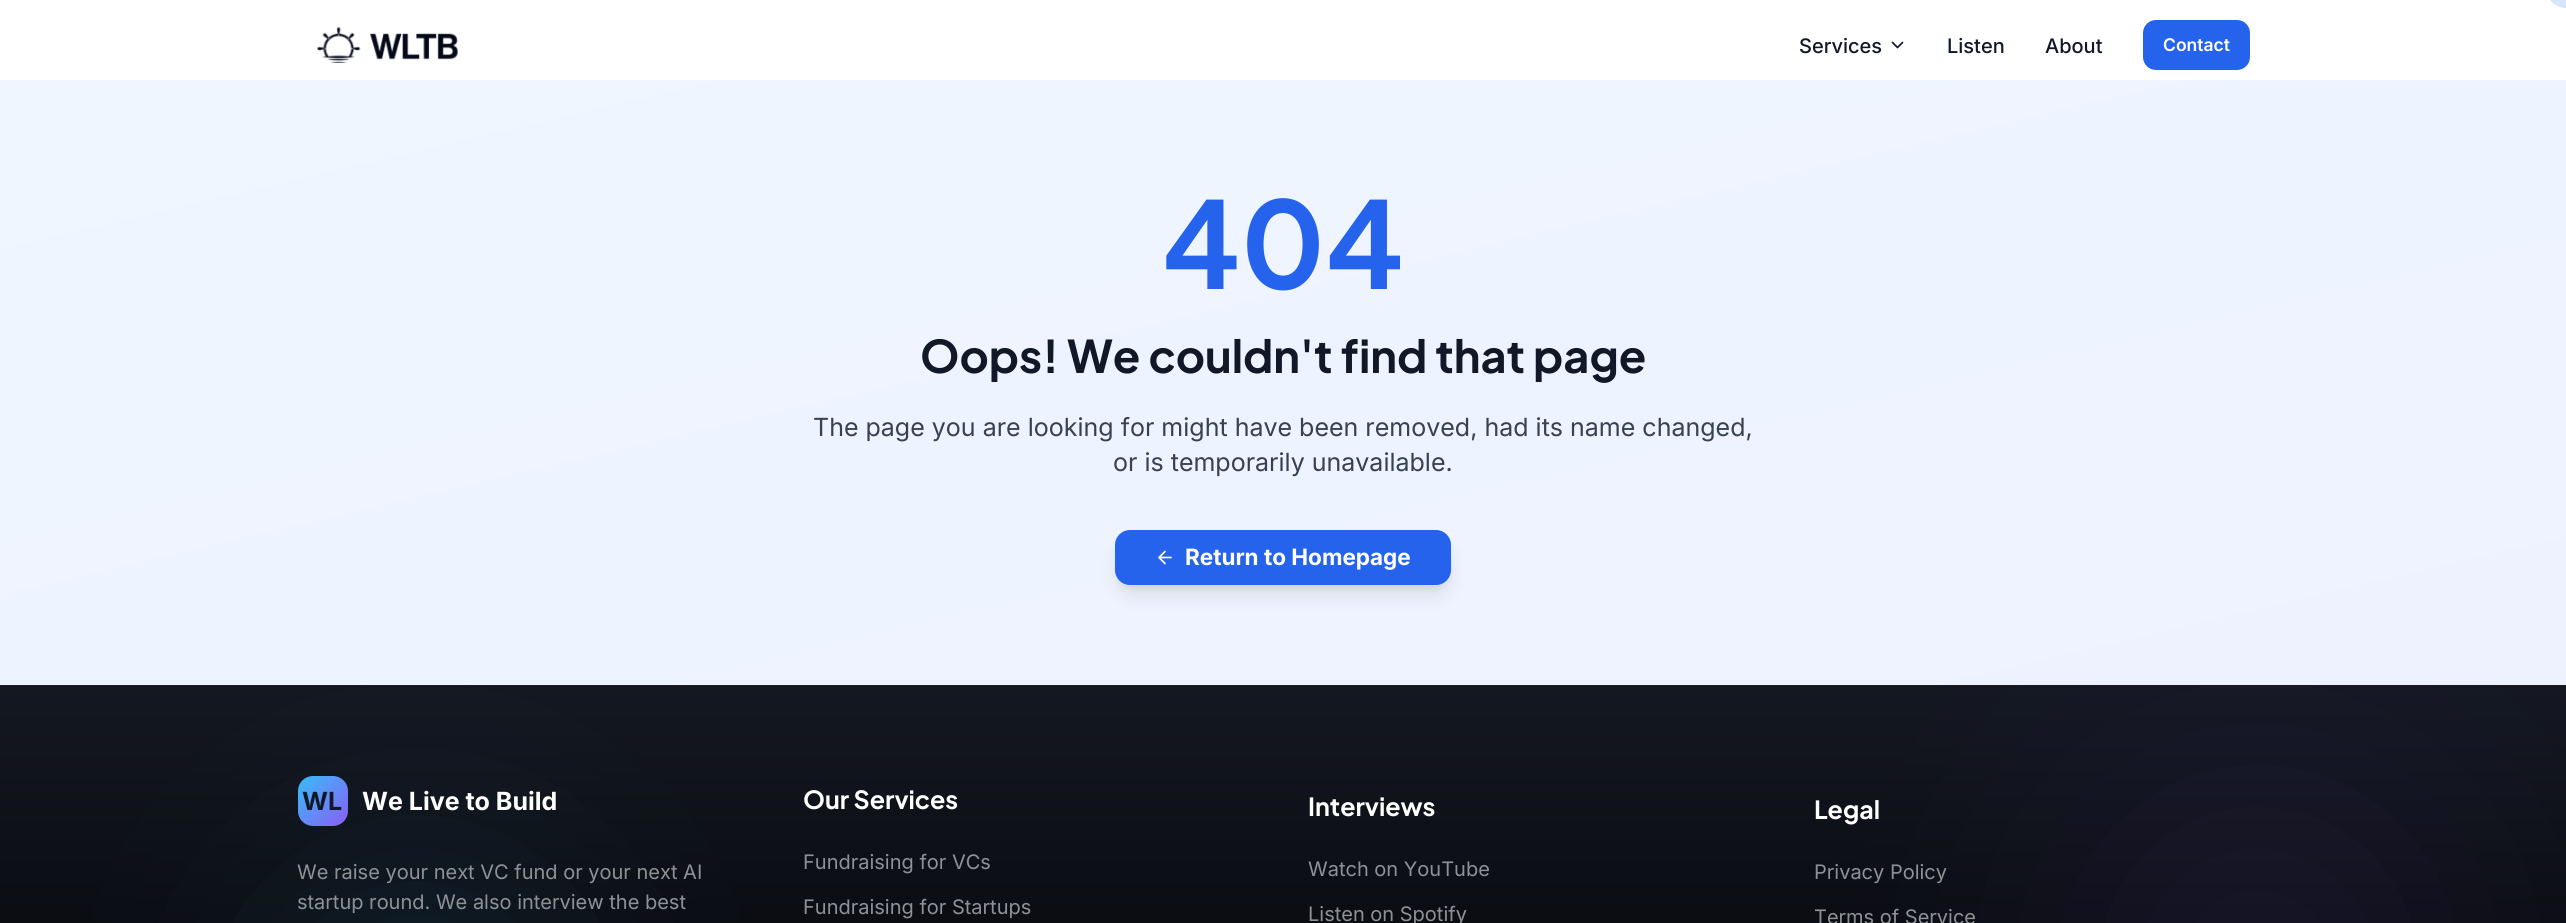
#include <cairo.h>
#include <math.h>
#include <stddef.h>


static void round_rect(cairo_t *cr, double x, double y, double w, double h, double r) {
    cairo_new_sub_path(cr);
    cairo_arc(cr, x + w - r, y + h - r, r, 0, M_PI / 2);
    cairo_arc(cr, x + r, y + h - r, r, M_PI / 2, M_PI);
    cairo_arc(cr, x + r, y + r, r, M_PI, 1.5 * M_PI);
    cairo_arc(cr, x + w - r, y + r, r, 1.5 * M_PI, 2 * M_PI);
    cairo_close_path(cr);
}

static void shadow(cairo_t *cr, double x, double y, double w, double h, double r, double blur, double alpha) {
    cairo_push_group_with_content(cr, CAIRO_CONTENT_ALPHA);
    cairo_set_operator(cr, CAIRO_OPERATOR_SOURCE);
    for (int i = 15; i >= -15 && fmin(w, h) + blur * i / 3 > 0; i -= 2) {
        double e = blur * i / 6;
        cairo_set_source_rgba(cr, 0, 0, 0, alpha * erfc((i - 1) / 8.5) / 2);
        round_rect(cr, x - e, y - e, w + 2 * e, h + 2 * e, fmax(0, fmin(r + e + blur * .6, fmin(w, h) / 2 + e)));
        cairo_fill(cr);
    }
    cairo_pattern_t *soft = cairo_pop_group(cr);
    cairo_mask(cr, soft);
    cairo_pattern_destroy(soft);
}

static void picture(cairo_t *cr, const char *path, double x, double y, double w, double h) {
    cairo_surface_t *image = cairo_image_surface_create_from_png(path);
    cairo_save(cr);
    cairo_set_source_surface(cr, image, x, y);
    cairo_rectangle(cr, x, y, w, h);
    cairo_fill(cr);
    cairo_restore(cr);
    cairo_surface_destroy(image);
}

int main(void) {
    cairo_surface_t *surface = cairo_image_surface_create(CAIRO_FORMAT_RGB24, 2566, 923);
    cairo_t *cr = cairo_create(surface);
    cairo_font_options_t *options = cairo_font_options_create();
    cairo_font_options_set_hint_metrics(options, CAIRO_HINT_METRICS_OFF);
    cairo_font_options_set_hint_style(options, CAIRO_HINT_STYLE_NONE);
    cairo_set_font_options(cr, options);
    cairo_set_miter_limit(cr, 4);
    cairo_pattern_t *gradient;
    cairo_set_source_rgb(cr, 1, 1, 1);
    cairo_paint(cr);
    picture(cr, "img1.png", 317, 26, 141, 37);
    cairo_select_font_face(cr, "Inter Medium", CAIRO_FONT_SLANT_NORMAL, CAIRO_FONT_WEIGHT_NORMAL);
    cairo_set_font_size(cr, 20);
    cairo_set_source_rgb(cr, 0.067, 0.094, 0.153);
    cairo_move_to(cr, 1799, 53);
    cairo_show_text(cr, "Services");
    cairo_new_path(cr);
    cairo_move_to(cr, 1892.5, 42.5);
    cairo_line_to(cr, 1897.5, 47.5);
    cairo_line_to(cr, 1902.5, 42.5);
    cairo_set_line_width(cr, 1.7);
    cairo_set_line_cap(cr, CAIRO_LINE_CAP_ROUND);
    cairo_set_line_join(cr, CAIRO_LINE_JOIN_ROUND);
    cairo_stroke(cr);
    cairo_move_to(cr, 1947, 53);
    cairo_show_text(cr, "Listen");
    cairo_move_to(cr, 2045, 53);
    cairo_show_text(cr, "About");
    cairo_set_source_rgb(cr, 0.145, 0.388, 0.922);
    round_rect(cr, 2143, 20, 107, 50, 13);
    cairo_fill(cr);
    cairo_select_font_face(cr, "Inter SemiBold", CAIRO_FONT_SLANT_NORMAL, CAIRO_FONT_WEIGHT_NORMAL);
    cairo_set_font_size(cr, 17.5);
    cairo_set_source_rgb(cr, 1, 1, 1);
    cairo_move_to(cr, 2163, 51);
    cairo_show_text(cr, "Contact");
    gradient = cairo_pattern_create_linear(1148, -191, 1418, 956);
    cairo_pattern_add_color_stop_rgba(gradient, 0, 0.937, 0.965, 1, 1);
    cairo_pattern_add_color_stop_rgba(gradient, 1, 0.933, 0.949, 1, 1);
    cairo_set_source(cr, gradient);
    cairo_pattern_destroy(gradient);
    cairo_rectangle(cr, 0, 80, 2566, 605);
    cairo_fill(cr);
    cairo_set_source_rgb(cr, 0.847, 0.902, 0.992);
    round_rect(cr, 2546, -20, 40, 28, 20);
    cairo_fill(cr);
    cairo_select_font_face(cr, "Plus Jakarta Sans", CAIRO_FONT_SLANT_NORMAL, CAIRO_FONT_WEIGHT_BOLD);
    cairo_set_font_size(cr, 120);
    cairo_set_source_rgb(cr, 0.145, 0.388, 0.922);
    cairo_move_to(cr, 1162, 289);
    cairo_show_text(cr, "404");
    cairo_set_font_size(cr, 45);
    cairo_set_source_rgb(cr, 0.067, 0.094, 0.153);
    cairo_move_to(cr, 920, 373);
    cairo_show_text(cr, "Oops! We couldn't find that page");
    cairo_select_font_face(cr, "Inter", CAIRO_FONT_SLANT_NORMAL, CAIRO_FONT_WEIGHT_NORMAL);
    cairo_set_font_size(cr, 25);
    cairo_set_source_rgb(cr, 0.216, 0.255, 0.318);
    cairo_move_to(cr, 813, 436);
    cairo_show_text(cr, "The page you are looking for might have been removed, had its name changed,");
    cairo_move_to(cr, 1113, 471);
    cairo_show_text(cr, "or is temporarily unavailable.");
    cairo_set_source_rgb(cr, 0, 0, 0);
    shadow(cr, 1120, 540, 326, 45, 10, 4, 0.1);
    shadow(cr, 1119, 546, 329, 48, 11, 9.5, 0.1);
    cairo_set_source_rgb(cr, 0.145, 0.388, 0.922);
    round_rect(cr, 1115, 530, 336, 55, 15);
    cairo_fill(cr);
    cairo_new_path(cr);
    cairo_move_to(cr, 1165, 563.5);
    cairo_line_to(cr, 1159, 557.5);
    cairo_line_to(cr, 1165, 551.5);
    cairo_move_to(cr, 1171, 557.5);
    cairo_line_to(cr, 1159, 557.5);
    cairo_set_source_rgb(cr, 1, 1, 1);
    cairo_stroke(cr);
    cairo_select_font_face(cr, "Inter", CAIRO_FONT_SLANT_NORMAL, CAIRO_FONT_WEIGHT_BOLD);
    cairo_set_font_size(cr, 22.5);
    cairo_move_to(cr, 1185, 565);
    cairo_show_text(cr, "Return to Homepage");
    gradient = cairo_pattern_create_linear(1283, 686, 1283, 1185);
    cairo_pattern_add_color_stop_rgba(gradient, 0, 0.078, 0.094, 0.133, 1);
    cairo_pattern_add_color_stop_rgba(gradient, 1, 0, 0, 0, 1);
    cairo_set_source(cr, gradient);
    cairo_pattern_destroy(gradient);
    cairo_rectangle(cr, 0, 686, 2566, 237);
    cairo_fill(cr);
    cairo_set_source_rgb(cr, 0.102, 0.102, 0.102);
    cairo_rectangle(cr, 0, 685, 2566, 1);
    cairo_fill(cr);
    cairo_set_source_rgb(cr, 0.22, 0.741, 0.973);
    shadow(cr, 256, 865, 320, 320, 160, 100, 0.1);
    cairo_save(cr);
    cairo_rectangle(cr, 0, 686, 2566, 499);
    cairo_clip(cr);
    cairo_set_source_rgb(cr, 0.545, 0.361, 0.965);
    shadow(cr, 2078, 786, 360, 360, 180, 125, 0.1);
    cairo_restore(cr);
    gradient = cairo_pattern_create_linear(298, 777, 348, 827);
    cairo_pattern_add_color_stop_rgba(gradient, 0, 0.22, 0.741, 0.973, 1);
    cairo_pattern_add_color_stop_rgba(gradient, 1, 0.545, 0.361, 0.965, 1);
    cairo_set_source(cr, gradient);
    cairo_pattern_destroy(gradient);
    round_rect(cr, 298, 776, 50, 50, 15);
    cairo_fill(cr);
    cairo_set_font_size(cr, 25);
    cairo_set_source_rgb(cr, 0.067, 0.094, 0.153);
    cairo_move_to(cr, 302, 810);
    cairo_show_text(cr, "WL");
    cairo_set_source_rgb(cr, 1, 1, 1);
    cairo_move_to(cr, 362, 810);
    cairo_show_text(cr, "We Live to Build");
    cairo_select_font_face(cr, "Inter", CAIRO_FONT_SLANT_NORMAL, CAIRO_FONT_WEIGHT_NORMAL);
    cairo_set_font_size(cr, 20);
    cairo_set_source_rgb(cr, 0.557, 0.569, 0.588);
    cairo_move_to(cr, 297, 879);
    cairo_show_text(cr, "We raise your next VC fund or your next AI");
    cairo_move_to(cr, 297, 909);
    cairo_show_text(cr, "startup round. We also interview the best");
    cairo_select_font_face(cr, "Plus Jakarta Sans", CAIRO_FONT_SLANT_NORMAL, CAIRO_FONT_WEIGHT_BOLD);
    cairo_set_font_size(cr, 25);
    cairo_set_source_rgb(cr, 1, 1, 1);
    cairo_move_to(cr, 803, 809);
    cairo_show_text(cr, "Our Services");
    cairo_select_font_face(cr, "Inter", CAIRO_FONT_SLANT_NORMAL, CAIRO_FONT_WEIGHT_NORMAL);
    cairo_set_font_size(cr, 20);
    cairo_set_source_rgb(cr, 0.557, 0.569, 0.588);
    cairo_move_to(cr, 803, 869);
    cairo_show_text(cr, "Fundraising for VCs");
    cairo_move_to(cr, 803, 914);
    cairo_show_text(cr, "Fundraising for Startups");
    cairo_select_font_face(cr, "Plus Jakarta Sans", CAIRO_FONT_SLANT_NORMAL, CAIRO_FONT_WEIGHT_BOLD);
    cairo_set_font_size(cr, 25);
    cairo_set_source_rgb(cr, 1, 1, 1);
    cairo_move_to(cr, 1308, 816);
    cairo_show_text(cr, "Interviews");
    cairo_select_font_face(cr, "Inter", CAIRO_FONT_SLANT_NORMAL, CAIRO_FONT_WEIGHT_NORMAL);
    cairo_set_font_size(cr, 20);
    cairo_set_source_rgb(cr, 0.557, 0.569, 0.588);
    cairo_move_to(cr, 1308, 876);
    cairo_show_text(cr, "Watch on YouTube");
    cairo_move_to(cr, 1308, 921);
    cairo_show_text(cr, "Listen on Spotify");
    cairo_select_font_face(cr, "Plus Jakarta Sans", CAIRO_FONT_SLANT_NORMAL, CAIRO_FONT_WEIGHT_BOLD);
    cairo_set_font_size(cr, 25);
    cairo_set_source_rgb(cr, 1, 1, 1);
    cairo_move_to(cr, 1814, 819);
    cairo_show_text(cr, "Legal");
    cairo_select_font_face(cr, "Inter", CAIRO_FONT_SLANT_NORMAL, CAIRO_FONT_WEIGHT_NORMAL);
    cairo_set_font_size(cr, 20);
    cairo_set_source_rgb(cr, 0.557, 0.569, 0.588);
    cairo_move_to(cr, 1814, 879);
    cairo_show_text(cr, "Privacy Policy");
    cairo_move_to(cr, 1814, 924);
    cairo_show_text(cr, "Terms of Service");
    cairo_surface_write_to_png(surface, "page.png");
    cairo_font_options_destroy(options);
    cairo_destroy(cr);
    cairo_surface_destroy(surface);
    return 0;
}
